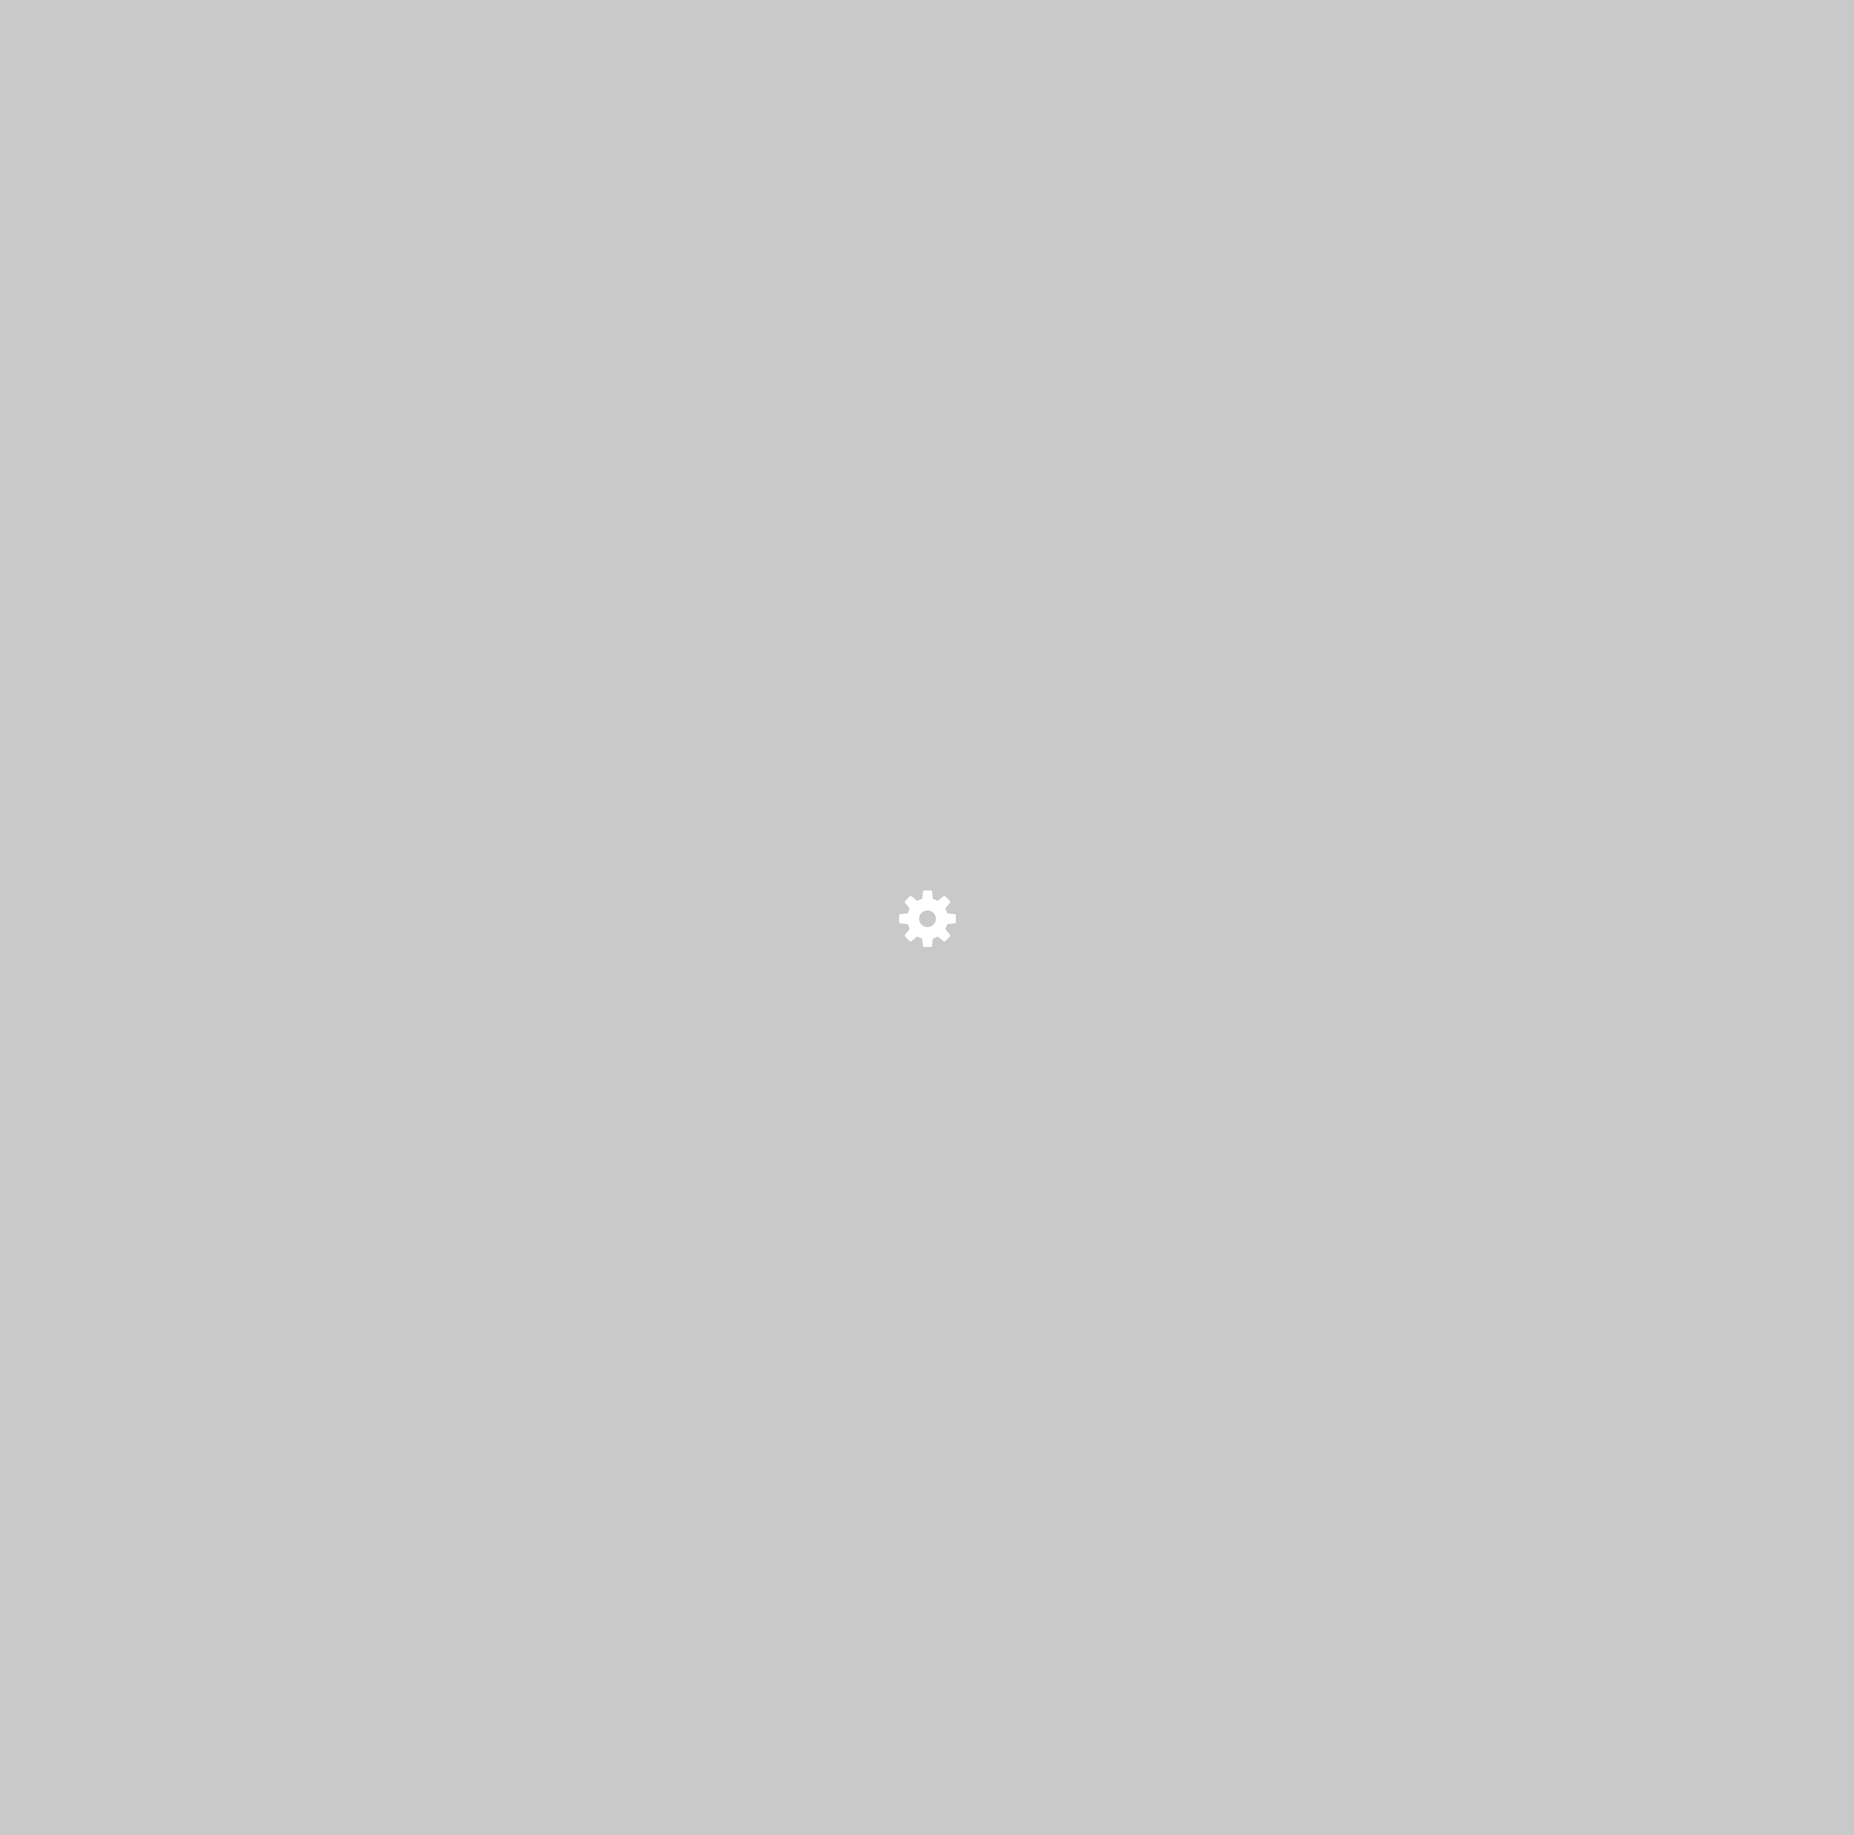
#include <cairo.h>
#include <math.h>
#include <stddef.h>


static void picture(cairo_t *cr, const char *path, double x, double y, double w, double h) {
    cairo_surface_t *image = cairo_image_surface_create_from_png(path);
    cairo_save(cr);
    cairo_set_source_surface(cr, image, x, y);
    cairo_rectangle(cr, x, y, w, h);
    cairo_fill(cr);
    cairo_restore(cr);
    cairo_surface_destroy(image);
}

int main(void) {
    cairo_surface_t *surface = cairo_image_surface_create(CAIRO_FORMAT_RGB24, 1854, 1835);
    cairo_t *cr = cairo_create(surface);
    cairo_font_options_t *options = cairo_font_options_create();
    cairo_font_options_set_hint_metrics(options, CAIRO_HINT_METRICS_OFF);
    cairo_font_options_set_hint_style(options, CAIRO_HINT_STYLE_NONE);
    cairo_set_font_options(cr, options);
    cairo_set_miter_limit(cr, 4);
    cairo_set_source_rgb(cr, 0.788, 0.788, 0.788);
    cairo_paint(cr);
    picture(cr, "img1.png", 899, 890, 57, 57);
    cairo_surface_write_to_png(surface, "page.png");
    cairo_font_options_destroy(options);
    cairo_destroy(cr);
    cairo_surface_destroy(surface);
    return 0;
}
